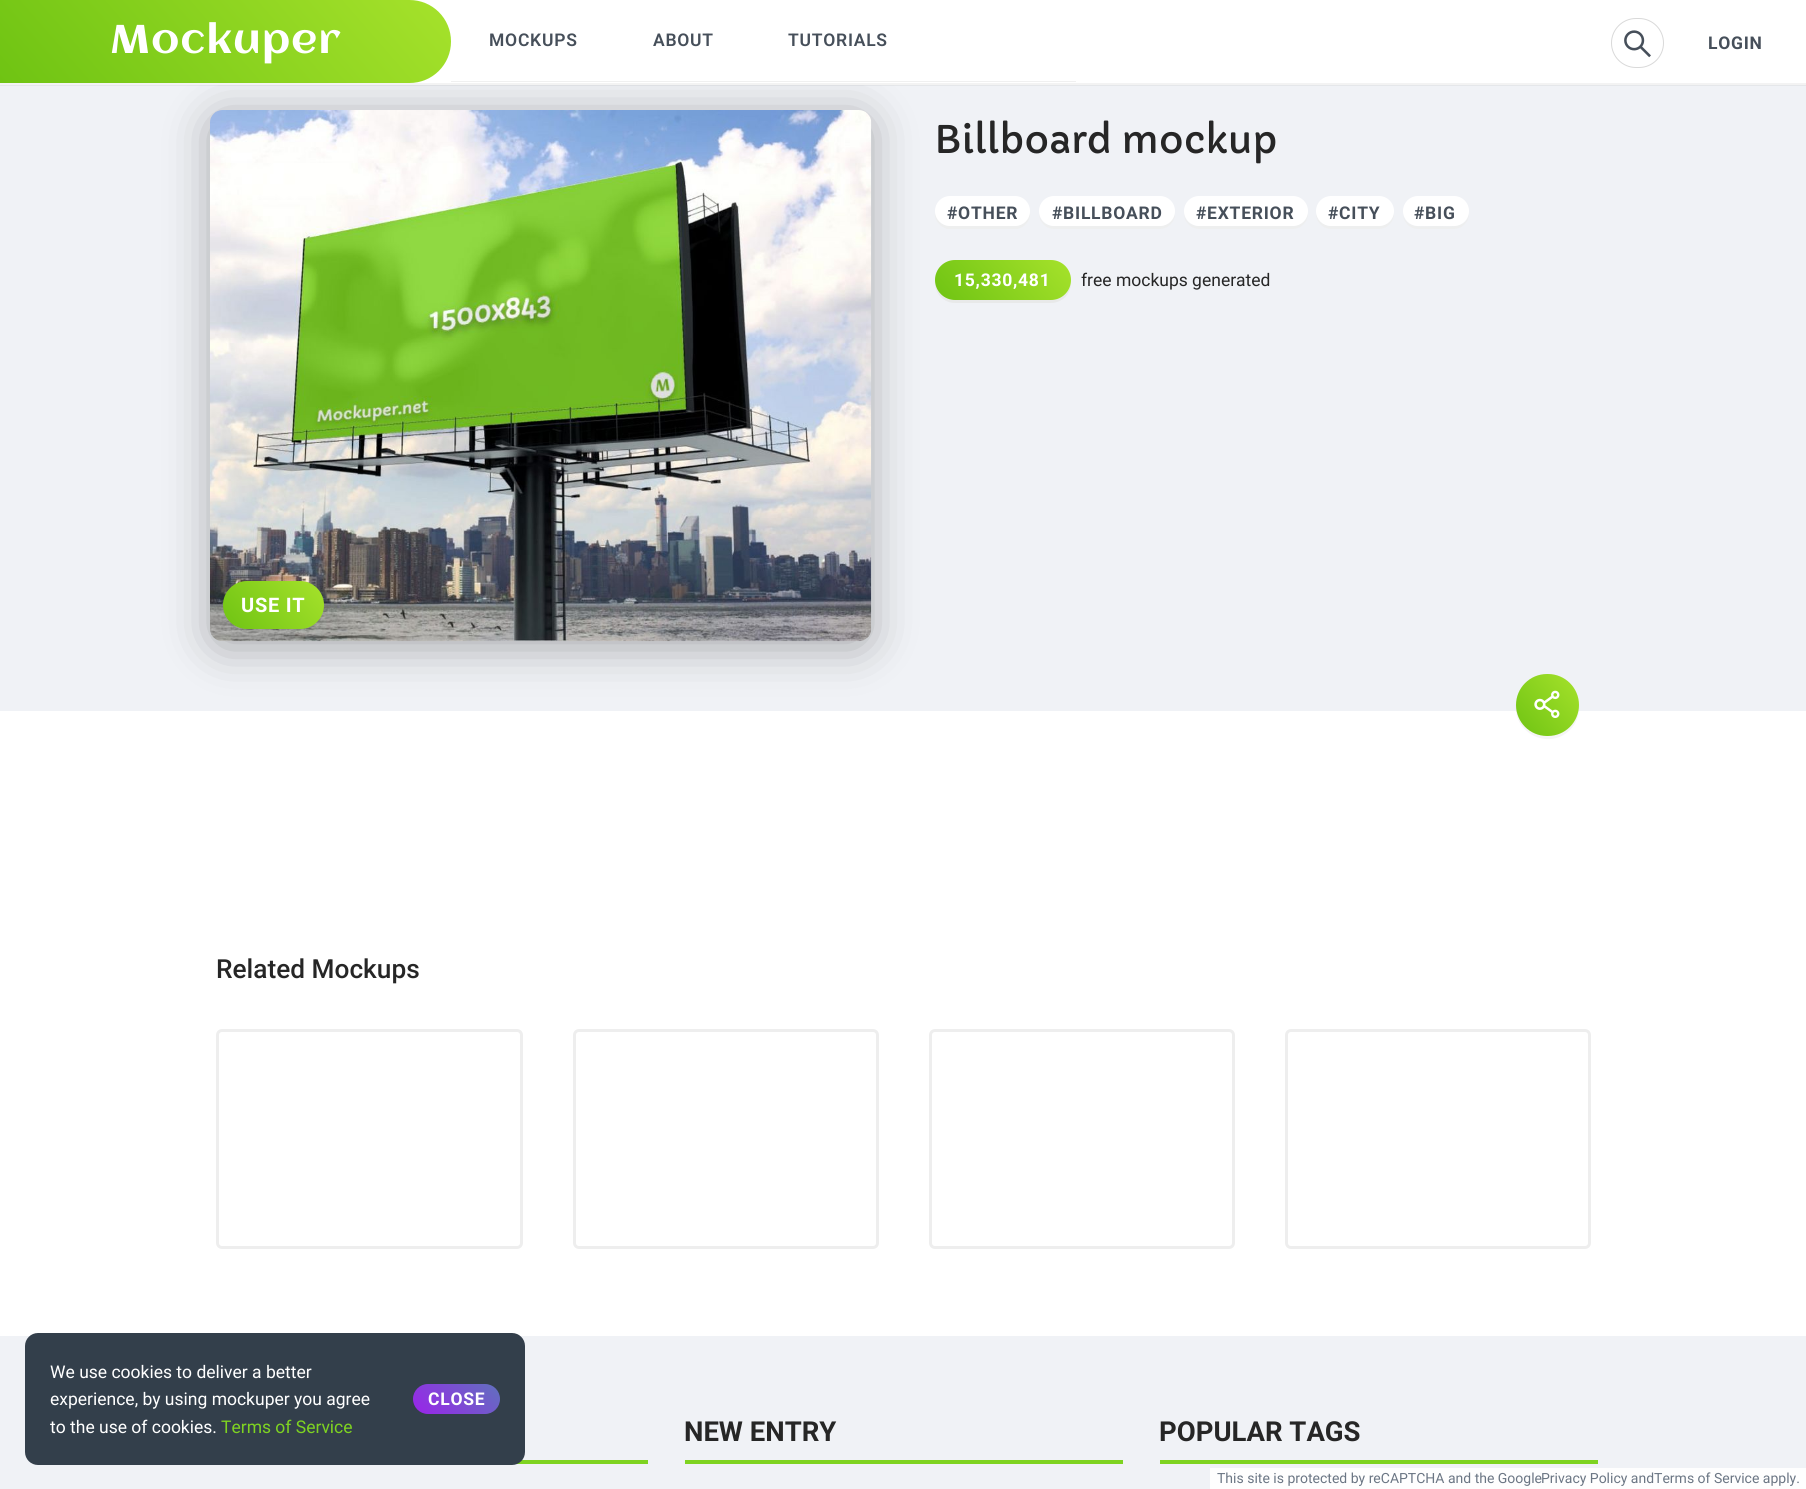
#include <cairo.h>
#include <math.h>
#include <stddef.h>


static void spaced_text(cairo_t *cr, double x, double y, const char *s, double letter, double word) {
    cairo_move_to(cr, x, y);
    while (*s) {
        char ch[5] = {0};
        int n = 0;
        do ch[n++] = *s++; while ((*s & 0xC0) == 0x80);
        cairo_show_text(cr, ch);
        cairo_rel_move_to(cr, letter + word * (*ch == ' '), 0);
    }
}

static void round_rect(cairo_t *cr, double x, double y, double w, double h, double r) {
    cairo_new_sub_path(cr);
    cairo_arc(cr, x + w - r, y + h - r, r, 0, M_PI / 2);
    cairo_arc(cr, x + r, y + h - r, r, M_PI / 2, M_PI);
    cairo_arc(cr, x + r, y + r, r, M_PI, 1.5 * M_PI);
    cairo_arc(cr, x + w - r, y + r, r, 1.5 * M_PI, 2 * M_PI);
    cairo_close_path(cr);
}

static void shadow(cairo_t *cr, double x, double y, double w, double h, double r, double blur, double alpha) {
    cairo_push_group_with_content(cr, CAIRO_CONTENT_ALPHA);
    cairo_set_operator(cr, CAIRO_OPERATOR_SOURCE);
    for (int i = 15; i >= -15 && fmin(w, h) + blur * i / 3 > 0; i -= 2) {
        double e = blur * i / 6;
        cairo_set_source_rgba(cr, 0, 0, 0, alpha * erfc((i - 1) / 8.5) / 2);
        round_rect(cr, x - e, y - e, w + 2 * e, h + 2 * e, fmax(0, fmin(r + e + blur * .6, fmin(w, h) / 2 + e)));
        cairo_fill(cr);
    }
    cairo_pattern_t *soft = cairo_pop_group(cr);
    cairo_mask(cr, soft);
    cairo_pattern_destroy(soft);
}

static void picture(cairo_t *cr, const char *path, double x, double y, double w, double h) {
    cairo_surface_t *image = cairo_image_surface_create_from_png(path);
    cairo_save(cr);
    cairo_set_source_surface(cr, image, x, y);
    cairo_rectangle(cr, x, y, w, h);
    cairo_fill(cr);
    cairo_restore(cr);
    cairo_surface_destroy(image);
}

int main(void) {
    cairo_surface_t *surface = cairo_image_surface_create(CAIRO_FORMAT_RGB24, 1806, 1489);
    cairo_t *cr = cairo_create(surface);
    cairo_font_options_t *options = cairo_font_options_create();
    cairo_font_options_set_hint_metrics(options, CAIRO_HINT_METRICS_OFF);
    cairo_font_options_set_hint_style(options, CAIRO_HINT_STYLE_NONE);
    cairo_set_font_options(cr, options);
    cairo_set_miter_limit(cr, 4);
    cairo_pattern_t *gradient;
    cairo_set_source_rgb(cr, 0.941, 0.949, 0.961);
    cairo_paint(cr);
    cairo_set_source_rgb(cr, 1, 1, 1);
    cairo_rectangle(cr, 0, 711, 1806, 625);
    cairo_fill(cr);
    cairo_set_source_rgb(cr, 0, 0, 0);
    shadow(cr, 210, 116, 661, 532, 13, 22.5, 0.3);
    cairo_set_source_rgb(cr, 1, 1, 1);
    cairo_rectangle(cr, 0, 0, 1806, 85);
    cairo_fill(cr);
    cairo_set_source_rgba(cr, 0, 0, 0, 0.05);
    cairo_rectangle(cr, 0, 83, 1806, 3);
    cairo_fill(cr);
    gradient = cairo_pattern_create_linear(77, 171, 375, -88);
    cairo_pattern_add_color_stop_rgba(gradient, 0, 0.435, 0.765, 0.075, 1);
    cairo_pattern_add_color_stop_rgba(gradient, 1, 0.651, 0.886, 0.169, 1);
    cairo_set_source(cr, gradient);
    cairo_pattern_destroy(gradient);
    cairo_new_path(cr);
    cairo_move_to(cr, 0, 0);
    cairo_line_to(cr, 409.5, 0);
    cairo_curve_to(cr, 432.5, 0, 451, 18.5, 451, 41.5);
    cairo_curve_to(cr, 451, 64.5, 432.5, 83, 409.5, 83);
    cairo_line_to(cr, 0, 83);
    cairo_close_path(cr);
    cairo_fill(cr);
    cairo_select_font_face(cr, "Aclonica", CAIRO_FONT_SLANT_NORMAL, CAIRO_FONT_WEIGHT_NORMAL);
    cairo_set_font_size(cr, 40);
    cairo_set_source_rgb(cr, 1, 1, 1);
    spaced_text(cr, 110, 53, "Mockuper", 1.25, 0);
    cairo_set_source_rgb(cr, 0.941, 0.941, 0.941);
    cairo_rectangle(cr, 451, 81, 625, 1);
    cairo_fill(cr);
    cairo_select_font_face(cr, "Roboto SemiBold", CAIRO_FONT_SLANT_NORMAL, CAIRO_FONT_WEIGHT_NORMAL);
    cairo_set_font_size(cr, 17.5);
    cairo_set_source_rgb(cr, 0.275, 0.31, 0.353);
    spaced_text(cr, 489, 46, "MOCKUPS", 0.75, 0);
    spaced_text(cr, 653, 46, "ABOUT", 0.75, 0);
    spaced_text(cr, 788, 46, "TUTORIALS", 0.75, 0);
    round_rect(cr, 1611.5, 18.5, 52, 49, 24.5);
    cairo_set_source_rgb(cr, 0.851, 0.851, 0.851);
    cairo_set_line_width(cr, 1);
    cairo_stroke(cr);
    picture(cr, "img1.png", 1624, 30, 27, 28);
    cairo_select_font_face(cr, "Roboto", CAIRO_FONT_SLANT_NORMAL, CAIRO_FONT_WEIGHT_BOLD);
    cairo_set_source_rgb(cr, 0.275, 0.31, 0.353);
    spaced_text(cr, 1708, 49, "LOGIN", 0.75, 0);
    cairo_select_font_face(cr, "Capriola", CAIRO_FONT_SLANT_NORMAL, CAIRO_FONT_WEIGHT_NORMAL);
    cairo_set_font_size(cr, 37.5);
    cairo_set_source_rgb(cr, 0.149, 0.149, 0.149);
    cairo_move_to(cr, 934, 153);
    cairo_show_text(cr, "Billboard mockup");
    cairo_set_source_rgb(cr, 0.933, 0.937, 0.937);
    cairo_new_path(cr);
    cairo_move_to(cr, 935, 213);
    cairo_curve_to(cr, 934, 220, 940, 227, 947, 229);
    cairo_line_to(cr, 1018, 229);
    cairo_curve_to(cr, 1025, 227, 1031, 220, 1030, 213);
    cairo_curve_to(cr, 1029, 220, 1023, 226, 1015, 226);
    cairo_line_to(cr, 950, 226);
    cairo_curve_to(cr, 942, 226, 936, 220, 935, 213);
    cairo_close_path(cr);
    cairo_fill(cr);
    cairo_set_source_rgb(cr, 1, 1, 1);
    round_rect(cr, 935, 196, 95, 30, 15);
    cairo_fill(cr);
    cairo_select_font_face(cr, "Roboto", CAIRO_FONT_SLANT_NORMAL, CAIRO_FONT_WEIGHT_BOLD);
    cairo_set_font_size(cr, 17.5);
    cairo_set_source_rgb(cr, 0.275, 0.31, 0.353);
    spaced_text(cr, 947, 219, "#OTHER", 0.75, 0);
    cairo_set_source_rgb(cr, 0.933, 0.937, 0.937);
    cairo_new_path(cr);
    cairo_move_to(cr, 1039, 214);
    cairo_curve_to(cr, 1039, 222, 1046, 229, 1054, 229);
    cairo_line_to(cr, 1160, 229);
    cairo_curve_to(cr, 1168, 229, 1175, 222, 1175, 214);
    cairo_line_to(cr, 1175, 213);
    cairo_curve_to(cr, 1174, 220, 1168, 226, 1160, 226);
    cairo_line_to(cr, 1054, 226);
    cairo_curve_to(cr, 1046, 226, 1040, 221, 1039, 214);
    cairo_close_path(cr);
    cairo_fill(cr);
    cairo_set_source_rgb(cr, 1, 1, 1);
    round_rect(cr, 1039, 196, 136, 30, 15);
    cairo_fill(cr);
    cairo_set_source_rgb(cr, 0.275, 0.31, 0.353);
    spaced_text(cr, 1052, 219, "#BILLBOARD", 0.75, 0);
    cairo_set_source_rgb(cr, 0.933, 0.937, 0.937);
    cairo_new_path(cr);
    cairo_move_to(cr, 1184, 214);
    cairo_curve_to(cr, 1184, 222, 1191, 229, 1199, 229);
    cairo_line_to(cr, 1293, 229);
    cairo_curve_to(cr, 1301, 229, 1308, 222, 1308, 214);
    cairo_line_to(cr, 1307, 210);
    cairo_line_to(cr, 1308, 211);
    cairo_curve_to(cr, 1308, 220, 1301, 226, 1292, 226);
    cairo_line_to(cr, 1199, 226);
    cairo_curve_to(cr, 1191, 226, 1185, 221, 1184, 214);
    cairo_close_path(cr);
    cairo_fill(cr);
    cairo_set_source_rgb(cr, 1, 1, 1);
    round_rect(cr, 1184, 196, 124, 30, 15);
    cairo_fill(cr);
    cairo_set_source_rgb(cr, 0.275, 0.31, 0.353);
    spaced_text(cr, 1196, 219, "#EXTERIOR", 0.75, 0);
    cairo_set_source_rgb(cr, 0.933, 0.937, 0.937);
    cairo_new_path(cr);
    cairo_move_to(cr, 1316, 211);
    cairo_line_to(cr, 1316, 214);
    cairo_curve_to(cr, 1316, 222, 1323, 229, 1331, 229);
    cairo_line_to(cr, 1379, 229);
    cairo_curve_to(cr, 1387, 229, 1394, 222, 1394, 214);
    cairo_line_to(cr, 1394, 211);
    cairo_curve_to(cr, 1394, 220, 1387, 226, 1379, 226);
    cairo_line_to(cr, 1331, 226);
    cairo_curve_to(cr, 1323, 226, 1316, 220, 1316, 211);
    cairo_close_path(cr);
    cairo_fill(cr);
    cairo_set_source_rgb(cr, 1, 1, 1);
    round_rect(cr, 1316, 196, 78, 30, 15);
    cairo_fill(cr);
    cairo_set_source_rgb(cr, 0.275, 0.31, 0.353);
    spaced_text(cr, 1328, 219, "#CITY", 0.75, 0);
    cairo_set_source_rgb(cr, 0.933, 0.937, 0.937);
    cairo_new_path(cr);
    cairo_move_to(cr, 1403, 215);
    cairo_curve_to(cr, 1404, 223, 1410, 229, 1418, 229);
    cairo_line_to(cr, 1454, 229);
    cairo_curve_to(cr, 1462, 229, 1469, 222, 1469, 214);
    cairo_line_to(cr, 1469, 211);
    cairo_curve_to(cr, 1469, 230, 1448, 226, 1436, 226);
    cairo_curve_to(cr, 1425, 226, 1407, 230, 1403, 215);
    cairo_close_path(cr);
    cairo_fill(cr);
    cairo_set_source_rgb(cr, 1, 1, 1);
    round_rect(cr, 1403, 196, 66, 30, 15);
    cairo_fill(cr);
    cairo_set_source_rgb(cr, 0.275, 0.31, 0.353);
    spaced_text(cr, 1414, 219, "#BIG", 0.75, 0);
    cairo_set_source_rgb(cr, 0.91, 0.914, 0.914);
    cairo_new_path(cr);
    cairo_move_to(cr, 935, 282);
    cairo_line_to(cr, 935, 283);
    cairo_curve_to(cr, 935, 294, 944, 303, 955, 303);
    cairo_line_to(cr, 1051, 303);
    cairo_curve_to(cr, 1062, 303, 1071, 294, 1071, 283);
    cairo_curve_to(cr, 1069, 293, 1061, 300, 1051, 300);
    cairo_line_to(cr, 955, 300);
    cairo_curve_to(cr, 944, 300, 936, 292, 935, 282);
    cairo_close_path(cr);
    cairo_fill(cr);
    gradient = cairo_pattern_create_linear(954, 322, 1052, 238);
    cairo_pattern_add_color_stop_rgba(gradient, 0, 0.435, 0.765, 0.075, 1);
    cairo_pattern_add_color_stop_rgba(gradient, 1, 0.651, 0.886, 0.169, 1);
    cairo_set_source(cr, gradient);
    cairo_pattern_destroy(gradient);
    round_rect(cr, 935, 260, 136, 40, 20);
    cairo_fill(cr);
    cairo_set_source_rgb(cr, 1, 1, 1);
    spaced_text(cr, 954, 286, "15,330,481", 0.75, 0);
    cairo_select_font_face(cr, "Roboto", CAIRO_FONT_SLANT_NORMAL, CAIRO_FONT_WEIGHT_NORMAL);
    cairo_set_source_rgb(cr, 0.149, 0.149, 0.149);
    cairo_move_to(cr, 1081, 286);
    cairo_show_text(cr, "free mockups generated");
    picture(cr, "img2.png", 210, 110, 662, 532);
    cairo_set_source_rgba(cr, 0, 0, 0, 0.04);
    cairo_new_path(cr);
    cairo_move_to(cr, 223, 611);
    cairo_curve_to(cr, 225, 622, 235, 631, 246, 631);
    cairo_line_to(cr, 300, 631);
    cairo_curve_to(cr, 313, 631, 324, 620, 324, 608);
    cairo_line_to(cr, 324, 604);
    cairo_line_to(cr, 324, 605);
    cairo_curve_to(cr, 324, 618, 313, 629, 300, 629);
    cairo_line_to(cr, 246, 629);
    cairo_curve_to(cr, 235, 629, 226, 621, 223, 611);
    cairo_close_path(cr);
    cairo_fill(cr);
    gradient = cairo_pattern_create_linear(233, 640, 314, 570);
    cairo_pattern_add_color_stop_rgba(gradient, 0, 0.435, 0.765, 0.075, 1);
    cairo_pattern_add_color_stop_rgba(gradient, 1, 0.651, 0.886, 0.169, 1);
    cairo_set_source(cr, gradient);
    cairo_pattern_destroy(gradient);
    round_rect(cr, 223, 581, 101, 48, 24);
    cairo_fill(cr);
    cairo_select_font_face(cr, "Roboto", CAIRO_FONT_SLANT_NORMAL, CAIRO_FONT_WEIGHT_BOLD);
    cairo_set_font_size(cr, 20);
    cairo_set_source_rgb(cr, 1, 1, 1);
    spaced_text(cr, 241, 612, "USE IT", 0.75, 0);
    cairo_set_source_rgba(cr, 0, 0, 0, 0.04);
    cairo_new_path(cr);
    cairo_move_to(cr, 1516, 703);
    cairo_curve_to(cr, 1512, 736, 1555, 753, 1574, 725);
    cairo_curve_to(cr, 1578, 719, 1580, 711, 1579, 703);
    cairo_curve_to(cr, 1581, 734, 1539, 749, 1522, 722);
    cairo_curve_to(cr, 1518, 717, 1516, 710, 1516, 703);
    cairo_close_path(cr);
    cairo_fill(cr);
    gradient = cairo_pattern_create_linear(1514, 734, 1581, 676);
    cairo_pattern_add_color_stop_rgba(gradient, 0, 0.435, 0.765, 0.075, 1);
    cairo_pattern_add_color_stop_rgba(gradient, 1, 0.651, 0.886, 0.169, 1);
    cairo_set_source(cr, gradient);
    cairo_pattern_destroy(gradient);
    round_rect(cr, 1516, 674, 63, 62, 31);
    cairo_fill(cr);
    picture(cr, "img3.png", 1534, 690, 26, 28);
    cairo_select_font_face(cr, "Roboto Medium", CAIRO_FONT_SLANT_NORMAL, CAIRO_FONT_WEIGHT_NORMAL);
    cairo_set_font_size(cr, 26.25);
    cairo_set_source_rgb(cr, 0.149, 0.149, 0.149);
    cairo_move_to(cr, 216, 978);
    cairo_show_text(cr, "Related Mockups");
    round_rect(cr, 217.5, 1030.5, 304, 217, 4.5);
    cairo_set_source_rgb(cr, 0.933, 0.933, 0.933);
    cairo_set_line_width(cr, 3);
    cairo_stroke(cr);
    round_rect(cr, 574.5, 1030.5, 303, 217, 4.5);
    cairo_stroke(cr);
    round_rect(cr, 930.5, 1030.5, 303, 217, 4.5);
    cairo_stroke(cr);
    round_rect(cr, 1286.5, 1030.5, 303, 217, 4.5);
    cairo_stroke(cr);
    cairo_set_source_rgb(cr, 0.494, 0.827, 0.129);
    cairo_rectangle(cr, 685, 1460, 438, 4);
    cairo_fill(cr);
    cairo_select_font_face(cr, "Roboto", CAIRO_FONT_SLANT_NORMAL, CAIRO_FONT_WEIGHT_BOLD);
    cairo_set_font_size(cr, 27.5);
    cairo_set_source_rgb(cr, 0.149, 0.149, 0.149);
    cairo_move_to(cr, 684, 1441);
    cairo_show_text(cr, "NEW ENTRY");
    cairo_set_source_rgb(cr, 0.494, 0.827, 0.129);
    cairo_rectangle(cr, 1160, 1460, 438, 4);
    cairo_fill(cr);
    cairo_set_source_rgb(cr, 0.149, 0.149, 0.149);
    cairo_move_to(cr, 1159, 1441);
    cairo_show_text(cr, "POPULAR TAGS");
    cairo_set_source_rgb(cr, 0.494, 0.827, 0.129);
    cairo_rectangle(cr, 517, 1460, 131, 4);
    cairo_fill(cr);
    cairo_set_source_rgb(cr, 0.2, 0.247, 0.294);
    round_rect(cr, 25, 1333, 500, 132, 13);
    cairo_fill(cr);
    cairo_select_font_face(cr, "Roboto", CAIRO_FONT_SLANT_NORMAL, CAIRO_FONT_WEIGHT_NORMAL);
    cairo_set_font_size(cr, 17.5);
    cairo_set_source_rgb(cr, 1, 1, 1);
    cairo_move_to(cr, 50, 1378);
    cairo_show_text(cr, "We use cookies to deliver a better");
    cairo_move_to(cr, 50, 1405);
    cairo_show_text(cr, "experience, by using mockuper you agree");
    cairo_move_to(cr, 50, 1433);
    cairo_show_text(cr, "to the use of cookies.");
    cairo_set_source_rgb(cr, 0.494, 0.827, 0.129);
    cairo_move_to(cr, 221, 1433);
    cairo_show_text(cr, "Terms of Service");
    gradient = cairo_pattern_create_linear(486, 1369, 427, 1428);
    cairo_pattern_add_color_stop_rgba(gradient, 0, 0.373, 0.447, 0.741, 1);
    cairo_pattern_add_color_stop_rgba(gradient, 1, 0.608, 0.137, 0.918, 1);
    cairo_set_source(cr, gradient);
    cairo_pattern_destroy(gradient);
    round_rect(cr, 413, 1384, 87, 30, 15);
    cairo_fill(cr);
    cairo_select_font_face(cr, "Roboto", CAIRO_FONT_SLANT_NORMAL, CAIRO_FONT_WEIGHT_BOLD);
    cairo_set_source_rgb(cr, 1, 1, 1);
    spaced_text(cr, 428, 1405, "CLOSE", 0.75, 0);
    cairo_set_source_rgb(cr, 0.996, 0.996, 0.996);
    cairo_rectangle(cr, 1210, 1468, 596, 21);
    cairo_fill(cr);
    cairo_select_font_face(cr, "Roboto", CAIRO_FONT_SLANT_NORMAL, CAIRO_FONT_WEIGHT_NORMAL);
    cairo_set_font_size(cr, 14);
    cairo_set_source_rgb(cr, 0.42, 0.463, 0.518);
    cairo_move_to(cr, 1217, 1483);
    cairo_show_text(cr, "This site is protected by reCAPTCHA and the Google");
    cairo_move_to(cr, 1541, 1483);
    cairo_show_text(cr, "Privacy Policy andTerms of Service apply.");
    cairo_surface_write_to_png(surface, "page.png");
    cairo_font_options_destroy(options);
    cairo_destroy(cr);
    cairo_surface_destroy(surface);
    return 0;
}
